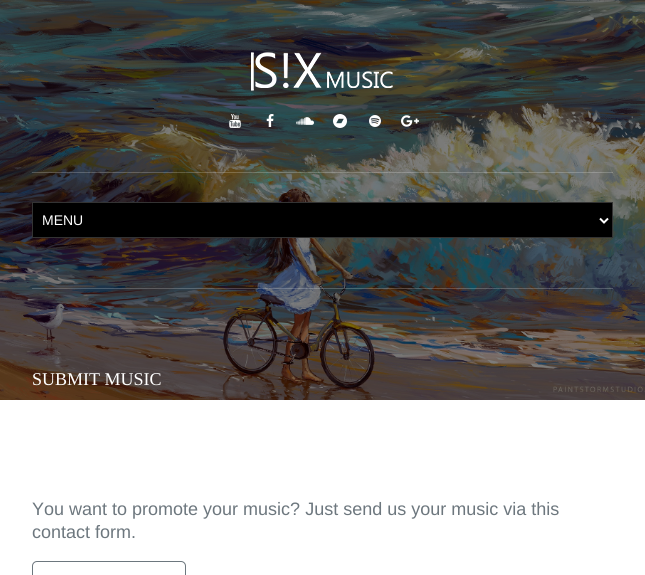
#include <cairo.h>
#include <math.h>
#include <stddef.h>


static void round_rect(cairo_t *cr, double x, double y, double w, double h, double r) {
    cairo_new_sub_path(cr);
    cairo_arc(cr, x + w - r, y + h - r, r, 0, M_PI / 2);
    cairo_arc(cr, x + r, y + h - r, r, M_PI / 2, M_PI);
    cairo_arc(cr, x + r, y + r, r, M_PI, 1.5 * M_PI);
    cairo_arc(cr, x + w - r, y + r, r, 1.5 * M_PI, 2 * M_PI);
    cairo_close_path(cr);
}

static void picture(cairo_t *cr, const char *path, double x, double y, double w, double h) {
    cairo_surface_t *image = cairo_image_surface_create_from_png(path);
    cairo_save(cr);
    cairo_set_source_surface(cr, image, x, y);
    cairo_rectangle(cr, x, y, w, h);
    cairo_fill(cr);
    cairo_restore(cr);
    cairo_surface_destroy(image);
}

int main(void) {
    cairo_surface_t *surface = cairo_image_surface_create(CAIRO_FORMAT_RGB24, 645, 575);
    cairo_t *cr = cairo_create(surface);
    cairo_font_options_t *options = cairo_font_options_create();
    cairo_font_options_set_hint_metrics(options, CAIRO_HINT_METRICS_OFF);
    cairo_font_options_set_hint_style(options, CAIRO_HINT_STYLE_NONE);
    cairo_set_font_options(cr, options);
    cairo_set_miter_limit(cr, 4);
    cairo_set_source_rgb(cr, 1, 1, 1);
    cairo_paint(cr);
    picture(cr, "img1.png", 0, 0, 645, 400);
    cairo_set_source_rgba(cr, 1, 1, 1, 0.2);
    cairo_rectangle(cr, 32, 172, 581, 1);
    cairo_fill(cr);
    picture(cr, "img2.png", 251, 52, 142, 39);
    picture(cr, "img3.png", 229, 114, 12, 14);
    picture(cr, "img4.png", 266, 114, 8, 13);
    picture(cr, "img5.png", 296, 117, 18, 8);
    picture(cr, "img6.png", 333, 114, 14, 14);
    picture(cr, "img7.png", 369, 115, 12, 12);
    picture(cr, "img8.png", 401, 115, 18, 12);
    cairo_set_source_rgb(cr, 0, 0, 0);
    cairo_rectangle(cr, 32.5, 202.5, 580, 35);
    cairo_fill_preserve(cr);
    cairo_set_source_rgb(cr, 0.2, 0.2, 0.2);
    cairo_set_line_width(cr, 1);
    cairo_stroke(cr);
    cairo_new_path(cr);
    cairo_move_to(cr, 600, 218.5);
    cairo_line_to(cr, 604, 222.5);
    cairo_line_to(cr, 608, 218.5);
    cairo_set_source_rgb(cr, 1, 1, 1);
    cairo_set_line_width(cr, 2);
    cairo_stroke(cr);
    cairo_select_font_face(cr, "Liberation Sans", CAIRO_FONT_SLANT_NORMAL, CAIRO_FONT_WEIGHT_NORMAL);
    cairo_set_font_size(cr, 14);
    cairo_move_to(cr, 42, 225);
    cairo_show_text(cr, "MENU");
    cairo_set_source_rgba(cr, 1, 1, 1, 0.2);
    cairo_rectangle(cr, 32, 288, 581, 1);
    cairo_fill(cr);
    cairo_select_font_face(cr, "Liberation Serif", CAIRO_FONT_SLANT_NORMAL, CAIRO_FONT_WEIGHT_NORMAL);
    cairo_set_font_size(cr, 18);
    cairo_set_source_rgb(cr, 1, 1, 1);
    cairo_move_to(cr, 32, 385);
    cairo_show_text(cr, "SUBMIT MUSIC");
    cairo_select_font_face(cr, "Liberation Sans", CAIRO_FONT_SLANT_NORMAL, CAIRO_FONT_WEIGHT_NORMAL);
    cairo_set_source_rgb(cr, 0.427, 0.467, 0.494);
    cairo_move_to(cr, 32, 515);
    cairo_show_text(cr, "You want to promote your music? Just send us your music via this");
    cairo_move_to(cr, 32, 538);
    cairo_show_text(cr, "contact form.");
    round_rect(cr, 32.5, 561.5, 153, 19, 4.5);
    cairo_set_line_width(cr, 1);
    cairo_stroke(cr);
    cairo_surface_write_to_png(surface, "page.png");
    cairo_font_options_destroy(options);
    cairo_destroy(cr);
    cairo_surface_destroy(surface);
    return 0;
}
